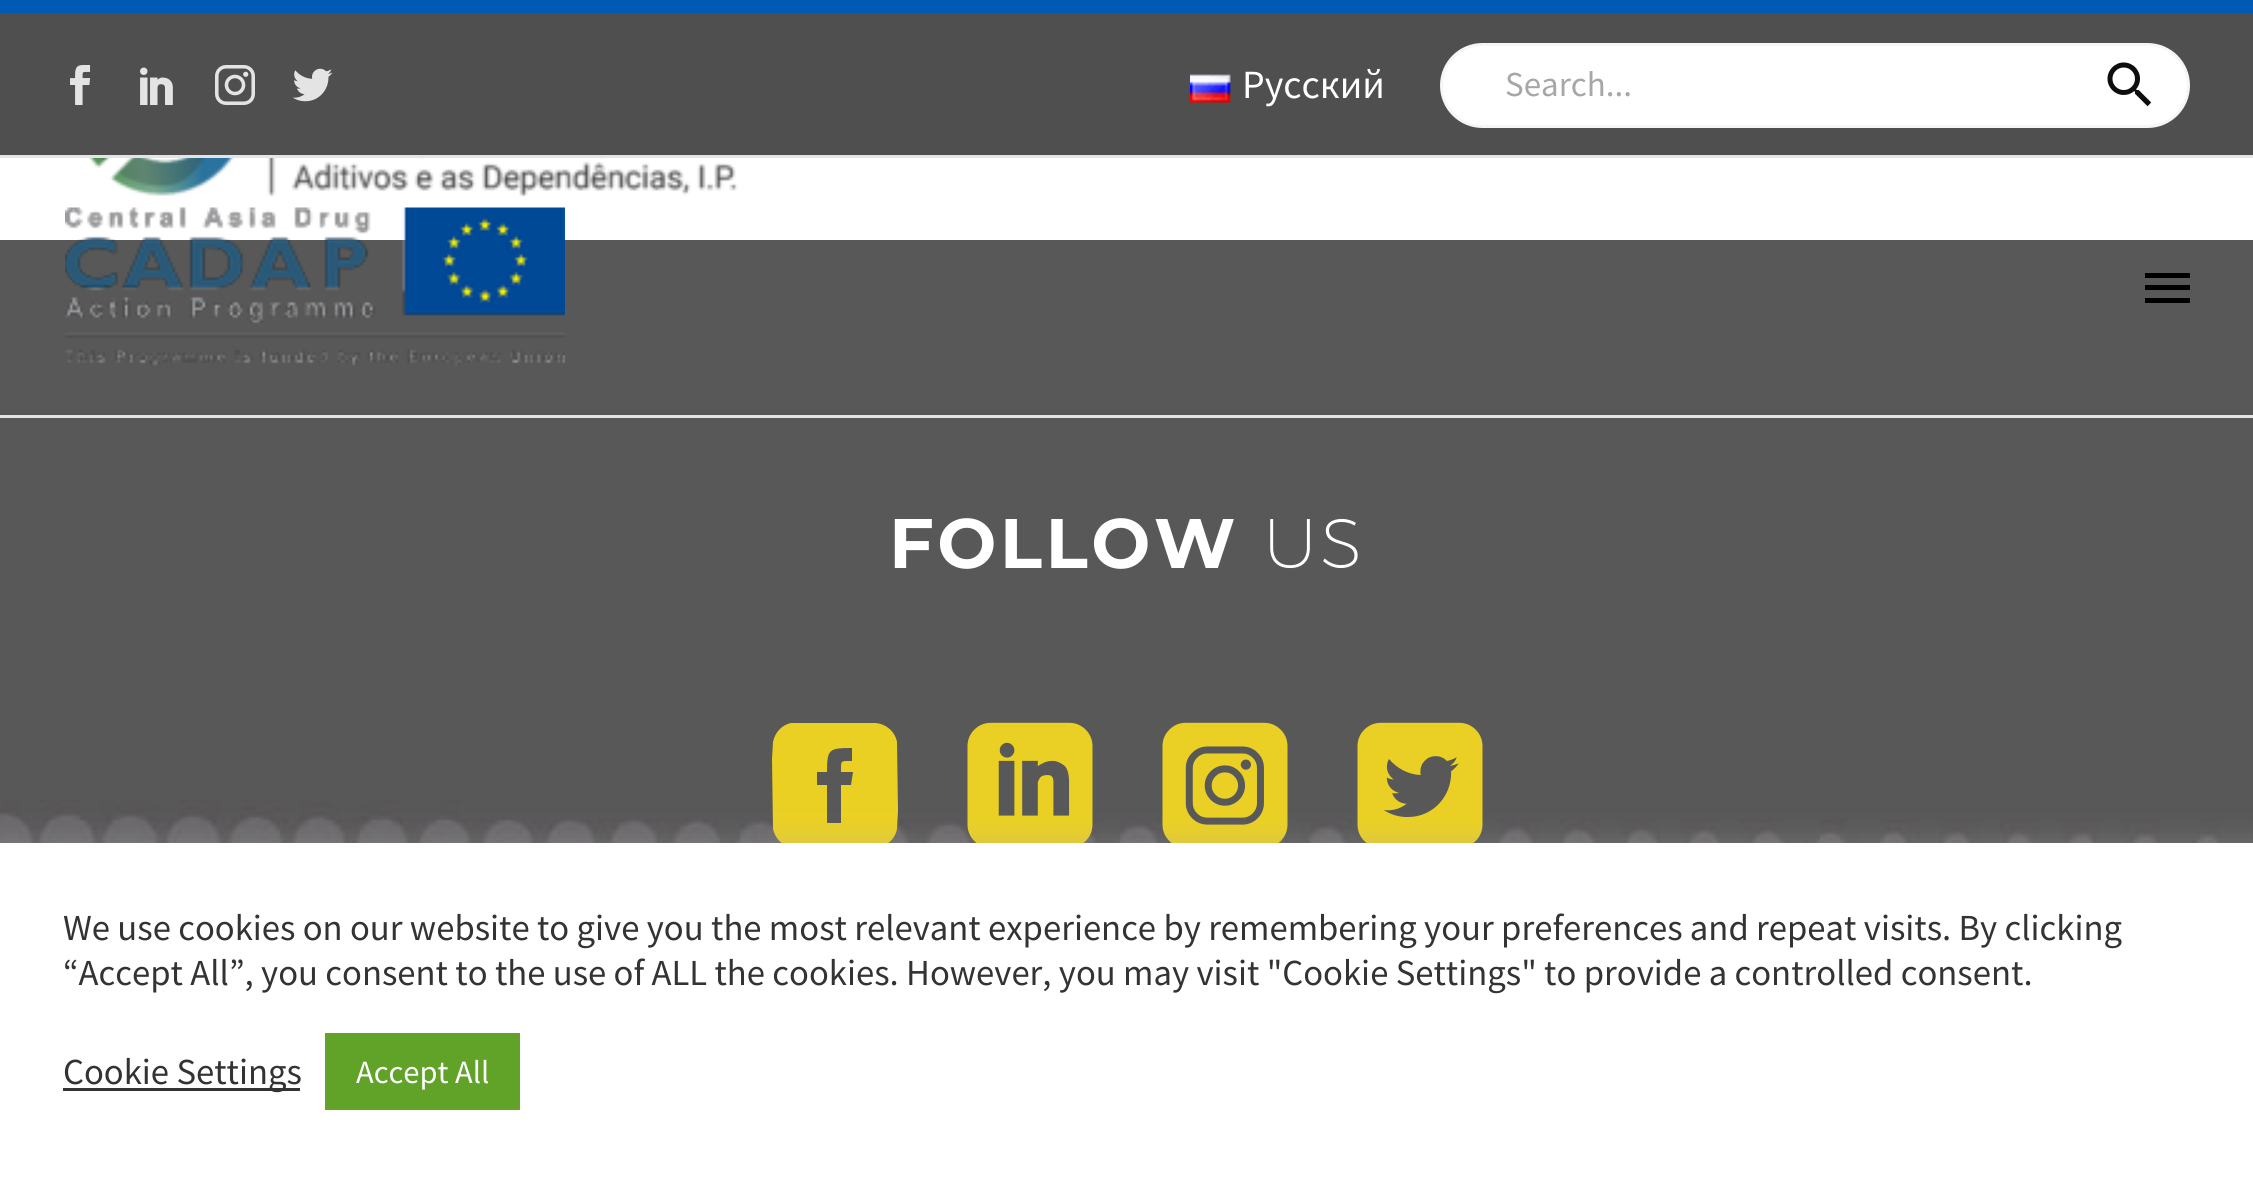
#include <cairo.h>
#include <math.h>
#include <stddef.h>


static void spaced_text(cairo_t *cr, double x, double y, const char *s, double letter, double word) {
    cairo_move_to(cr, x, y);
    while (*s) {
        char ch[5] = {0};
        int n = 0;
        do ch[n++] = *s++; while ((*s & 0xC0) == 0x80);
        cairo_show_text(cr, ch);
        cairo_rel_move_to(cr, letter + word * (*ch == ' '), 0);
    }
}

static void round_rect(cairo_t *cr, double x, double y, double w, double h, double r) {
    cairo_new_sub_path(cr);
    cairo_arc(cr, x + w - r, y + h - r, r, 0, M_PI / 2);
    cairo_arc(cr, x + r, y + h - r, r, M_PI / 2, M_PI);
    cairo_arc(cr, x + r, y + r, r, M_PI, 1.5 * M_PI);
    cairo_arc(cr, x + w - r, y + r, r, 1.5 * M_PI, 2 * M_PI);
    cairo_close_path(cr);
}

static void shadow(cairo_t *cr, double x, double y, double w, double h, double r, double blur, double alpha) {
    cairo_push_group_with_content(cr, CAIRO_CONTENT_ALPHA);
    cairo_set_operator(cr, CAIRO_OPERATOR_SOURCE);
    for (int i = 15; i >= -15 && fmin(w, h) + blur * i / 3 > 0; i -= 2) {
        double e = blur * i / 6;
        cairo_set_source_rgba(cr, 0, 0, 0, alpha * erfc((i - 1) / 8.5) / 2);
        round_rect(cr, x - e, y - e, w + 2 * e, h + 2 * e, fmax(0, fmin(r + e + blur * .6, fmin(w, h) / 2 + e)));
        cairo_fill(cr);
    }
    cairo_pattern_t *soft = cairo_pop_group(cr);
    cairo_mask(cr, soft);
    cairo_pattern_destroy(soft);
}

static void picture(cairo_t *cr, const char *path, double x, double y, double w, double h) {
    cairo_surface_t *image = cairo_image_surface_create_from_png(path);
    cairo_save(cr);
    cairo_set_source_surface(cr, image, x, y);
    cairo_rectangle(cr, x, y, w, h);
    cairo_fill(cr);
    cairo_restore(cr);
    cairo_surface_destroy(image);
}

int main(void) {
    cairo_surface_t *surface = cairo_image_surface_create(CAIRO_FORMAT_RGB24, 2253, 1185);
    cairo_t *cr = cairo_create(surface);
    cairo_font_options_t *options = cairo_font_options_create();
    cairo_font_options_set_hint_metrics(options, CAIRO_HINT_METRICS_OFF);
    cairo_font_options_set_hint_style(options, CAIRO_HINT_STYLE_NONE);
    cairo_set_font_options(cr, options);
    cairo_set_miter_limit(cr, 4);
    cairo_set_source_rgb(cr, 1, 1, 1);
    cairo_paint(cr);
    cairo_set_source_rgb(cr, 0.31, 0.31, 0.31);
    cairo_rectangle(cr, 0, 13, 2253, 142);
    cairo_fill(cr);
    cairo_set_source_rgb(cr, 0, 0.349, 0.698);
    cairo_rectangle(cr, 0, 0, 2253, 13);
    cairo_fill(cr);
    picture(cr, "img1.png", 70, 65, 21, 40);
    picture(cr, "img2.png", 140, 67, 33, 38);
    picture(cr, "img3.png", 215, 65, 40, 40);
    picture(cr, "img4.png", 292, 68, 41, 34);
    picture(cr, "img5.png", 1190, 74, 41, 29);
    cairo_select_font_face(cr, "Source Sans Pro", CAIRO_FONT_SLANT_NORMAL, CAIRO_FONT_WEIGHT_NORMAL);
    cairo_set_font_size(cr, 40);
    cairo_set_source_rgb(cr, 1, 1, 1);
    cairo_move_to(cr, 1242, 98);
    cairo_show_text(cr, "Русский");
    round_rect(cr, 1441.5, 44.5, 747, 82, 41);
    cairo_fill_preserve(cr);
    cairo_set_source_rgb(cr, 0.961, 0.961, 0.961);
    cairo_set_line_width(cr, 3);
    cairo_stroke(cr);
    cairo_set_font_size(cr, 35);
    cairo_set_source_rgb(cr, 0.655, 0.655, 0.655);
    cairo_move_to(cr, 1505, 96);
    cairo_show_text(cr, "Search...");
    picture(cr, "img6.png", 2107, 62, 45, 45);
    cairo_set_source_rgb(cr, 0.875, 0.898, 0.91);
    cairo_rectangle(cr, 0, 155, 2253, 3);
    cairo_fill(cr);
    picture(cr, "img9.png", 0, 240, 2253, 603);
    cairo_rectangle(cr, 0, 415, 2253, 3);
    cairo_fill(cr);
    picture(cr, "img7.png", 65, 207, 500, 159);
    cairo_set_source_rgb(cr, 0, 0, 0);
    cairo_rectangle(cr, 2145, 273, 45, 5);
    cairo_fill(cr);
    cairo_rectangle(cr, 2145, 285, 45, 5);
    cairo_fill(cr);
    cairo_rectangle(cr, 2145, 298, 45, 5);
    cairo_fill(cr);
    picture(cr, "img8.png", 89, 158, 649, 39);
    cairo_select_font_face(cr, "Montserrat", CAIRO_FONT_SLANT_NORMAL, CAIRO_FONT_WEIGHT_BOLD);
    cairo_set_font_size(cr, 70);
    cairo_set_source_rgb(cr, 1, 1, 1);
    spaced_text(cr, 889, 568, "FOLLOW", 3.5, 0);
    cairo_select_font_face(cr, "Montserrat ExtraLight", CAIRO_FONT_SLANT_NORMAL, CAIRO_FONT_WEIGHT_NORMAL);
    spaced_text(cr, 1263, 568, "US", 3.5, 0);
    cairo_set_source_rgb(cr, 0.918, 0.816, 0.141);
    cairo_new_path(cr);
    cairo_move_to(cr, 874, 723);
    cairo_line_to(cr, 791, 723);
    cairo_curve_to(cr, 782, 725, 775, 732, 773, 742);
    cairo_line_to(cr, 772, 759);
    cairo_line_to(cr, 773, 829);
    cairo_curve_to(cr, 775, 838, 782, 846, 791, 847);
    cairo_line_to(cr, 874, 848);
    cairo_curve_to(cr, 885, 848, 895, 840, 897, 829);
    cairo_line_to(cr, 898, 811);
    cairo_line_to(cr, 897, 742);
    cairo_curve_to(cr, 895, 731, 885, 723, 874, 723);
    cairo_close_path(cr);
    cairo_move_to(cr, 851, 785);
    cairo_line_to(cr, 841, 785);
    cairo_line_to(cr, 841, 823);
    cairo_line_to(cr, 827, 823);
    cairo_line_to(cr, 827, 785);
    cairo_line_to(cr, 817, 785);
    cairo_line_to(cr, 817, 772);
    cairo_line_to(cr, 827, 772);
    cairo_curve_to(cr, 827, 749, 829, 748, 852, 748);
    cairo_line_to(cr, 852, 761);
    cairo_curve_to(cr, 840, 761, 841, 760, 841, 772);
    cairo_line_to(cr, 853, 772);
    cairo_close_path(cr);
    cairo_fill(cr);
    picture(cr, "img10.png", 967, 722, 126, 121);
    picture(cr, "img11.png", 1162, 722, 126, 121);
    picture(cr, "img12.png", 1357, 722, 126, 121);
    cairo_set_source_rgb(cr, 0.675, 0.671, 0.671);
    shadow(cr, 0, 840, 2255, 343, 0, 12.5, 0.3);
    cairo_set_source_rgb(cr, 1, 1, 1);
    cairo_rectangle(cr, 0, 843, 2253, 342);
    cairo_fill(cr);
    cairo_select_font_face(cr, "Source Sans Pro", CAIRO_FONT_SLANT_NORMAL, CAIRO_FONT_WEIGHT_NORMAL);
    cairo_set_font_size(cr, 36.67);
    cairo_set_source_rgb(cr, 0.2, 0.2, 0.2);
    cairo_move_to(cr, 63, 940);
    cairo_show_text(cr, "We use cookies on our website to give you the most relevant experience by remembering your preferences and repeat visits. By clicking");
    cairo_move_to(cr, 63, 985);
    cairo_show_text(cr, "“Accept All”, you consent to the use of ALL the cookies. However, you may visit \"Cookie Settings\" to provide a controlled consent.");
    cairo_rectangle(cr, 63, 1088, 237, 3);
    cairo_fill(cr);
    cairo_move_to(cr, 63, 1084);
    cairo_show_text(cr, "Cookie Settings");
    cairo_set_source_rgb(cr, 0.38, 0.635, 0.161);
    cairo_rectangle(cr, 325, 1033, 195, 77);
    cairo_fill(cr);
    cairo_set_font_size(cr, 32.5);
    cairo_set_source_rgb(cr, 1, 1, 1);
    cairo_move_to(cr, 356, 1083);
    cairo_show_text(cr, "Accept All");
    cairo_surface_write_to_png(surface, "page.png");
    cairo_font_options_destroy(options);
    cairo_destroy(cr);
    cairo_surface_destroy(surface);
    return 0;
}
